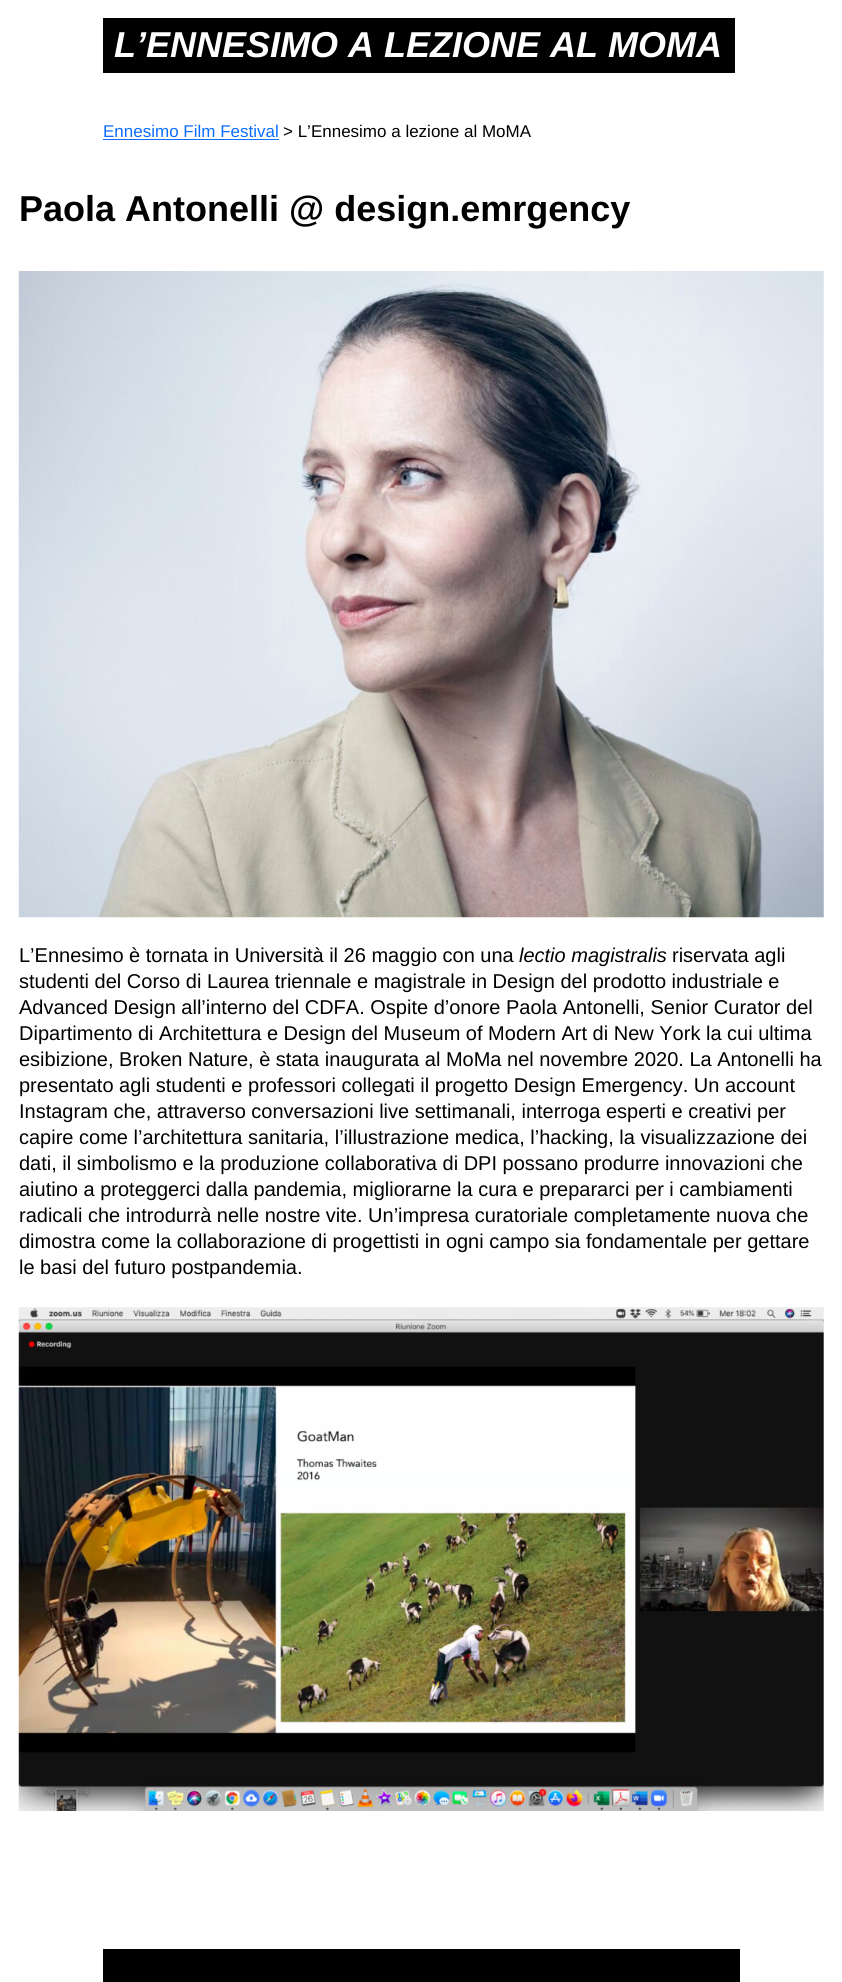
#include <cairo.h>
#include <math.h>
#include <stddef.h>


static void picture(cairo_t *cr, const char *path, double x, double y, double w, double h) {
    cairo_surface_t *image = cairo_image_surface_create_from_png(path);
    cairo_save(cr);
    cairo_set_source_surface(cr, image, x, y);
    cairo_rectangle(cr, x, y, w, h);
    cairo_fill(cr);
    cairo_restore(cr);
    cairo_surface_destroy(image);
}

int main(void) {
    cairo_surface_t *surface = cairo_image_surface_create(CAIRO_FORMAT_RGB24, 842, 1982);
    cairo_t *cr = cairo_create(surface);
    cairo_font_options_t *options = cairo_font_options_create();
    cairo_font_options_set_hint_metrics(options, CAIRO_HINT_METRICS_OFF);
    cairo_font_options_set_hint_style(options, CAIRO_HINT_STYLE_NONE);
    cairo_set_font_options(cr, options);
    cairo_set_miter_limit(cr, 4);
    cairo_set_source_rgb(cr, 1, 1, 1);
    cairo_paint(cr);
    cairo_set_source_rgb(cr, 0, 0, 0);
    cairo_rectangle(cr, 103, 18, 632, 55);
    cairo_fill(cr);
    cairo_select_font_face(cr, "Liberation Sans", CAIRO_FONT_SLANT_ITALIC, CAIRO_FONT_WEIGHT_BOLD);
    cairo_set_font_size(cr, 36);
    cairo_set_source_rgb(cr, 1, 1, 1);
    cairo_move_to(cr, 114, 57);
    cairo_show_text(cr, "L’ENNESIMO A LEZIONE AL MOMA");
    cairo_select_font_face(cr, "Liberation Sans", CAIRO_FONT_SLANT_NORMAL, CAIRO_FONT_WEIGHT_NORMAL);
    cairo_set_font_size(cr, 17);
    cairo_set_source_rgb(cr, 0.051, 0.431, 0.992);
    cairo_move_to(cr, 103, 137);
    cairo_show_text(cr, "Ennesimo Film Festival");
    cairo_rectangle(cr, 103, 139, 176, 1);
    cairo_fill(cr);
    cairo_set_source_rgb(cr, 0, 0, 0);
    cairo_move_to(cr, 283, 137);
    cairo_show_text(cr, "> L’Ennesimo a lezione al MoMA");
    cairo_select_font_face(cr, "Liberation Sans", CAIRO_FONT_SLANT_NORMAL, CAIRO_FONT_WEIGHT_BOLD);
    cairo_set_font_size(cr, 36);
    cairo_move_to(cr, 19, 221);
    cairo_show_text(cr, "Paola Antonelli @ design.emrgency");
    picture(cr, "img1.png", 18, 271, 806, 647);
    cairo_select_font_face(cr, "Liberation Sans", CAIRO_FONT_SLANT_NORMAL, CAIRO_FONT_WEIGHT_NORMAL);
    cairo_set_font_size(cr, 20);
    cairo_move_to(cr, 19, 962);
    cairo_show_text(cr, "L’Ennesimo è tornata in Università il 26 maggio con una");
    cairo_select_font_face(cr, "Liberation Sans", CAIRO_FONT_SLANT_ITALIC, CAIRO_FONT_WEIGHT_NORMAL);
    cairo_move_to(cr, 519, 962);
    cairo_show_text(cr, "lectio magistralis");
    cairo_select_font_face(cr, "Liberation Sans", CAIRO_FONT_SLANT_NORMAL, CAIRO_FONT_WEIGHT_NORMAL);
    cairo_move_to(cr, 672, 962);
    cairo_show_text(cr, "riservata agli");
    cairo_move_to(cr, 19, 988);
    cairo_show_text(cr, "studenti del Corso di Laurea triennale e magistrale in Design del prodotto industriale e");
    cairo_move_to(cr, 19, 1014);
    cairo_show_text(cr, "Advanced Design all’interno del CDFA. Ospite d’onore Paola Antonelli, Senior Curator del");
    cairo_move_to(cr, 19, 1040);
    cairo_show_text(cr, "Dipartimento di Architettura e Design del Museum of Modern Art di New York la cui ultima");
    cairo_move_to(cr, 19, 1066);
    cairo_show_text(cr, "esibizione, Broken Nature, è stata inaugurata al MoMa nel novembre 2020. La Antonelli ha");
    cairo_move_to(cr, 19, 1092);
    cairo_show_text(cr, "presentato agli studenti e professori collegati il progetto Design Emergency. Un account");
    cairo_move_to(cr, 19, 1118);
    cairo_show_text(cr, "Instagram che, attraverso conversazioni live settimanali, interroga esperti e creativi per");
    cairo_move_to(cr, 19, 1144);
    cairo_show_text(cr, "capire come l’architettura sanitaria, l’illustrazione medica, l’hacking, la visualizzazione dei");
    cairo_move_to(cr, 19, 1170);
    cairo_show_text(cr, "dati, il simbolismo e la produzione collaborativa di DPI possano produrre innovazioni che");
    cairo_move_to(cr, 19, 1196);
    cairo_show_text(cr, "aiutino a proteggerci dalla pandemia, migliorarne la cura e prepararci per i cambiamenti");
    cairo_move_to(cr, 19, 1222);
    cairo_show_text(cr, "radicali che introdurrà nelle nostre vite. Un’impresa curatoriale completamente nuova che");
    cairo_move_to(cr, 19, 1248);
    cairo_show_text(cr, "dimostra come la collaborazione di progettisti in ogni campo sia fondamentale per gettare");
    cairo_move_to(cr, 19, 1274);
    cairo_show_text(cr, "le basi del futuro postpandemia.");
    picture(cr, "img2.png", 18, 1307, 806, 504);
    cairo_rectangle(cr, 103, 1949, 637, 33);
    cairo_fill(cr);
    cairo_surface_write_to_png(surface, "page.png");
    cairo_font_options_destroy(options);
    cairo_destroy(cr);
    cairo_surface_destroy(surface);
    return 0;
}
